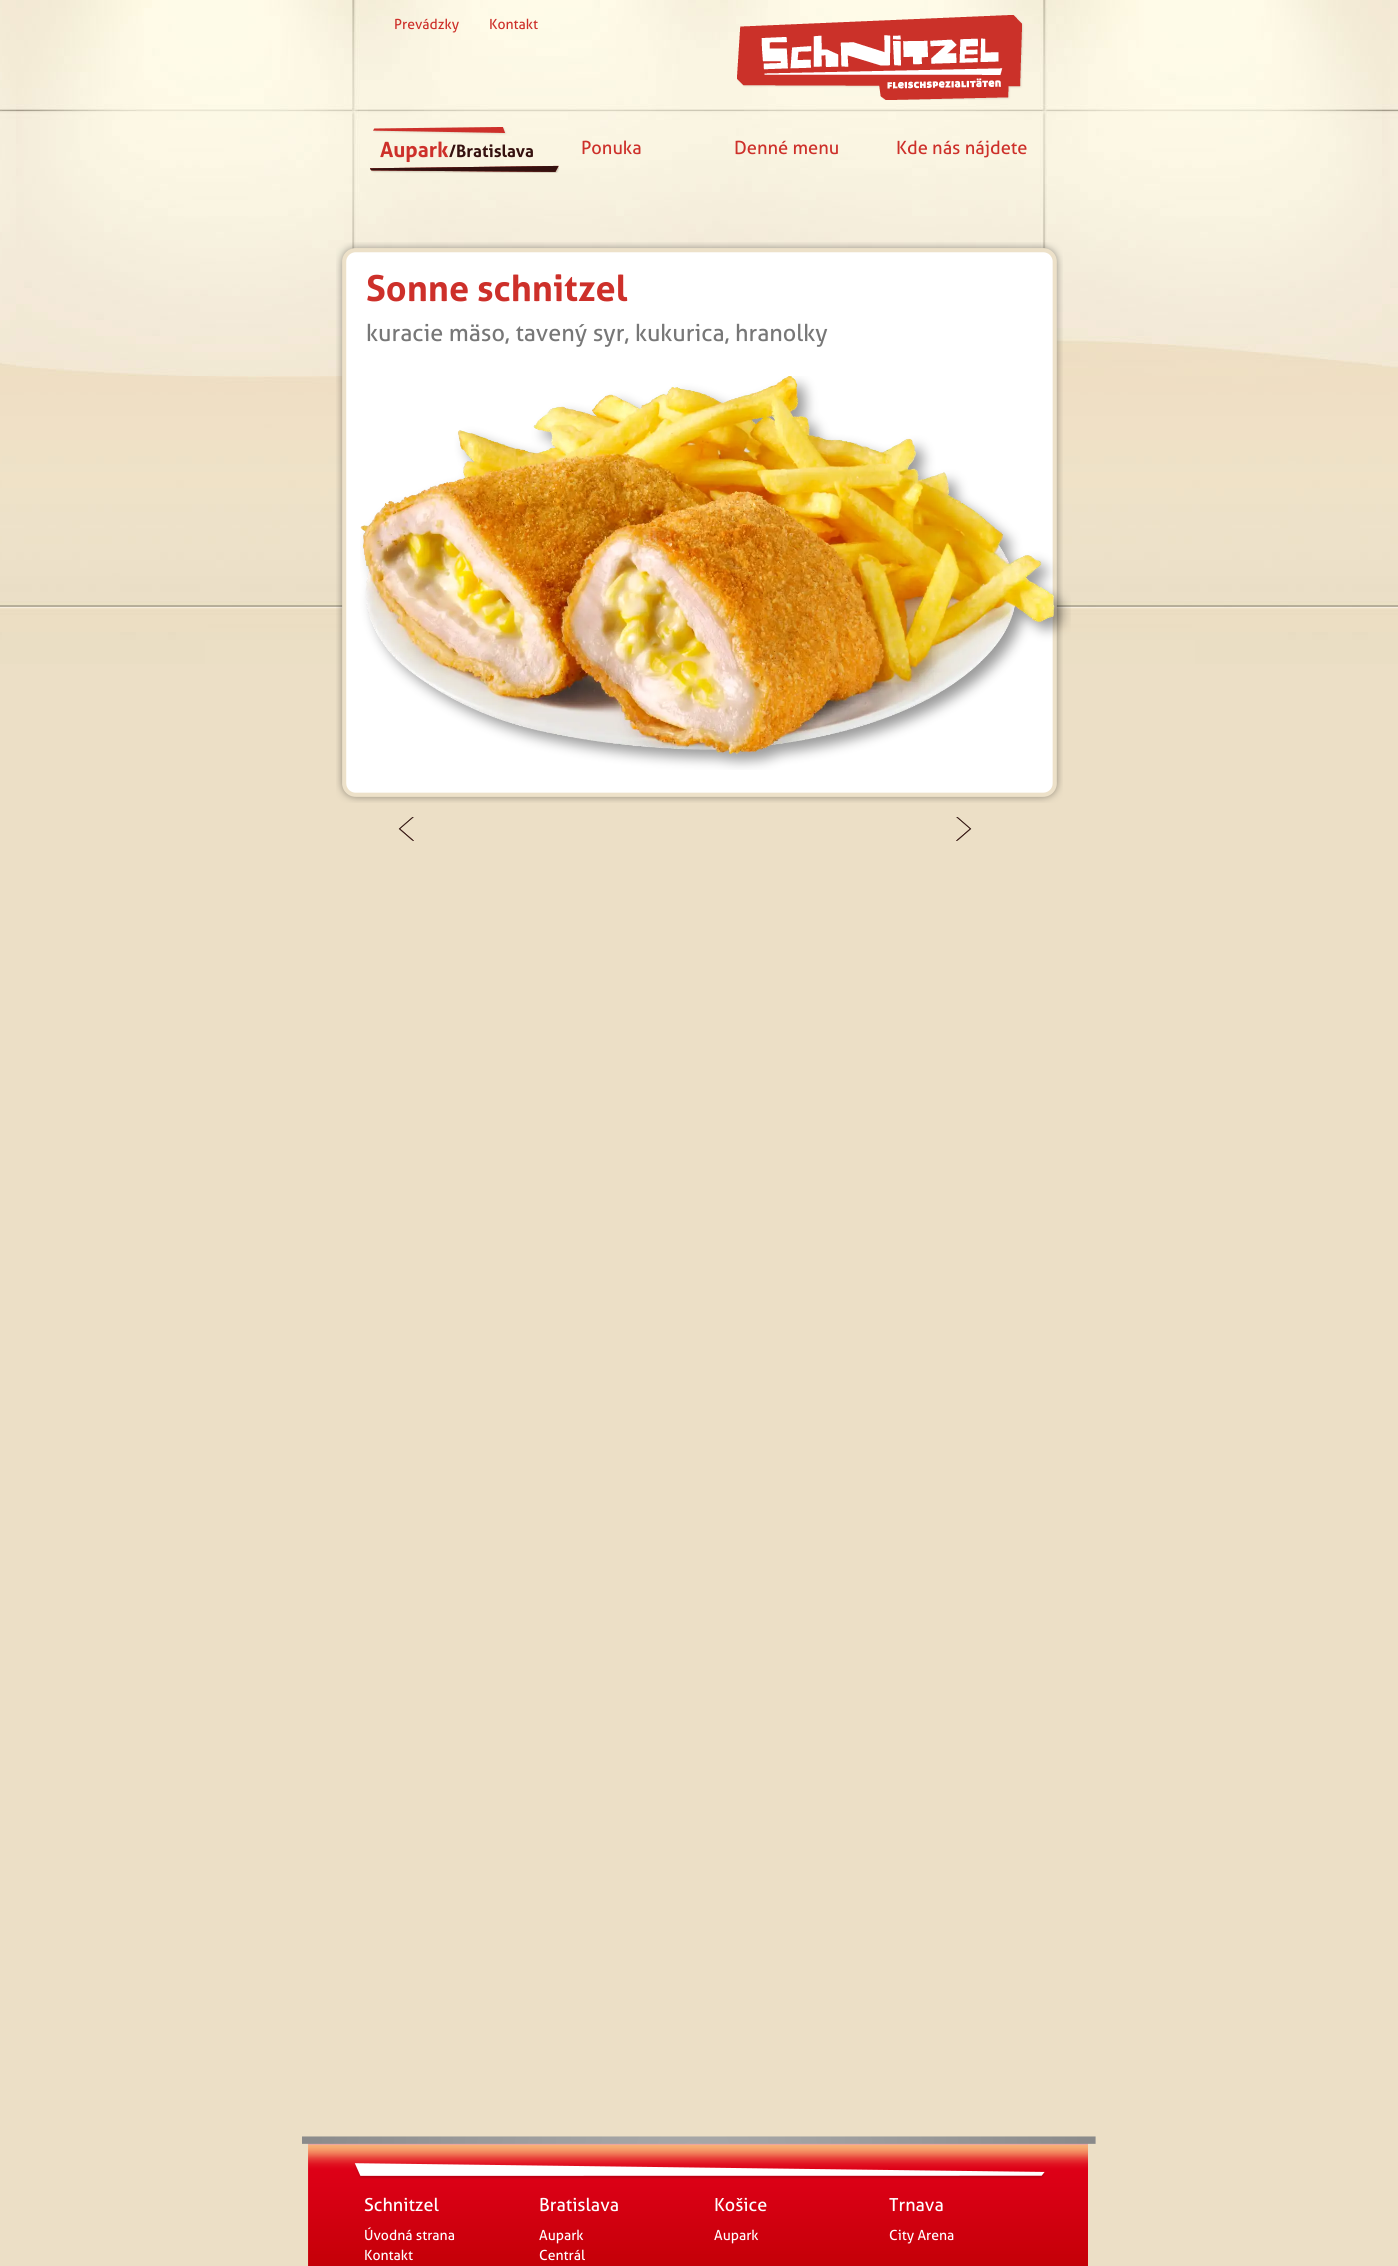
#include <cairo.h>
#include <math.h>
#include <stddef.h>


static void picture(cairo_t *cr, const char *path, double x, double y, double w, double h) {
    cairo_surface_t *image = cairo_image_surface_create_from_png(path);
    cairo_save(cr);
    cairo_set_source_surface(cr, image, x, y);
    cairo_rectangle(cr, x, y, w, h);
    cairo_fill(cr);
    cairo_restore(cr);
    cairo_surface_destroy(image);
}

int main(void) {
    cairo_surface_t *surface = cairo_image_surface_create(CAIRO_FORMAT_RGB24, 1398, 2266);
    cairo_t *cr = cairo_create(surface);
    cairo_font_options_t *options = cairo_font_options_create();
    cairo_font_options_set_hint_metrics(options, CAIRO_HINT_METRICS_OFF);
    cairo_font_options_set_hint_style(options, CAIRO_HINT_STYLE_NONE);
    cairo_set_font_options(cr, options);
    cairo_set_miter_limit(cr, 4);
    cairo_set_source_rgb(cr, 0.922, 0.875, 0.776);
    cairo_paint(cr);
    picture(cr, "img1.png", 0, 0, 1398, 664);
    cairo_select_font_face(cr, "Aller", CAIRO_FONT_SLANT_NORMAL, CAIRO_FONT_WEIGHT_NORMAL);
    cairo_set_font_size(cr, 14);
    cairo_set_source_rgb(cr, 0.804, 0.188, 0.165);
    cairo_move_to(cr, 394, 29);
    cairo_show_text(cr, "Prevádzky");
    cairo_move_to(cr, 489, 29);
    cairo_show_text(cr, "Kontakt");
    picture(cr, "img2.png", 737, 15, 287, 85);
    picture(cr, "img3.png", 370, 127, 189, 46);
    cairo_select_font_face(cr, "Aller", CAIRO_FONT_SLANT_NORMAL, CAIRO_FONT_WEIGHT_BOLD);
    cairo_set_font_size(cr, 21);
    cairo_move_to(cr, 380, 157);
    cairo_show_text(cr, "Aupark");
    cairo_set_font_size(cr, 17);
    cairo_set_source_rgb(cr, 0.208, 0.067, 0.059);
    cairo_move_to(cr, 449, 157);
    cairo_show_text(cr, "/Bratislava");
    cairo_select_font_face(cr, "Aller", CAIRO_FONT_SLANT_NORMAL, CAIRO_FONT_WEIGHT_NORMAL);
    cairo_set_font_size(cr, 18.25);
    cairo_set_source_rgb(cr, 0.804, 0.188, 0.165);
    cairo_move_to(cr, 581, 154);
    cairo_show_text(cr, "Ponuka");
    cairo_move_to(cr, 734, 154);
    cairo_show_text(cr, "Denné menu");
    cairo_move_to(cr, 896, 154);
    cairo_show_text(cr, "Kde nás nájdete");
    picture(cr, "img4.png", 336, 242, 727, 561);
    cairo_select_font_face(cr, "Aller", CAIRO_FONT_SLANT_NORMAL, CAIRO_FONT_WEIGHT_BOLD);
    cairo_set_font_size(cr, 36);
    cairo_move_to(cr, 366, 301);
    cairo_show_text(cr, "Sonne schnitzel");
    cairo_select_font_face(cr, "Aller", CAIRO_FONT_SLANT_NORMAL, CAIRO_FONT_WEIGHT_NORMAL);
    cairo_set_font_size(cr, 23.4);
    cairo_set_source_rgb(cr, 0.467, 0.467, 0.467);
    cairo_move_to(cr, 366, 341);
    cairo_show_text(cr, "kuracie mäso, tavený syr, kukurica, hranolky");
    picture(cr, "img5.png", 360, 376, 711, 394);
    picture(cr, "img6.png", 398, 817, 16, 24);
    picture(cr, "img7.png", 956, 817, 16, 24);
    picture(cr, "img8.png", 302, 2136, 794, 130);
    cairo_set_font_size(cr, 18);
    cairo_set_source_rgb(cr, 1, 1, 1);
    cairo_move_to(cr, 364, 2211);
    cairo_show_text(cr, "Schnitzel");
    cairo_set_font_size(cr, 14);
    cairo_move_to(cr, 364, 2240);
    cairo_show_text(cr, "Úvodná strana");
    cairo_move_to(cr, 364, 2260);
    cairo_show_text(cr, "Kontakt");
    cairo_set_font_size(cr, 18);
    cairo_move_to(cr, 539, 2211);
    cairo_show_text(cr, "Bratislava");
    cairo_set_font_size(cr, 14);
    cairo_move_to(cr, 539, 2240);
    cairo_show_text(cr, "Aupark");
    cairo_move_to(cr, 539, 2260);
    cairo_show_text(cr, "Centrál");
    cairo_set_font_size(cr, 18);
    cairo_move_to(cr, 714, 2211);
    cairo_show_text(cr, "Košice");
    cairo_set_font_size(cr, 14);
    cairo_move_to(cr, 714, 2240);
    cairo_show_text(cr, "Aupark");
    cairo_set_font_size(cr, 18);
    cairo_move_to(cr, 889, 2211);
    cairo_show_text(cr, "Trnava");
    cairo_set_font_size(cr, 14);
    cairo_move_to(cr, 889, 2240);
    cairo_show_text(cr, "City Arena");
    cairo_surface_write_to_png(surface, "page.png");
    cairo_font_options_destroy(options);
    cairo_destroy(cr);
    cairo_surface_destroy(surface);
    return 0;
}
